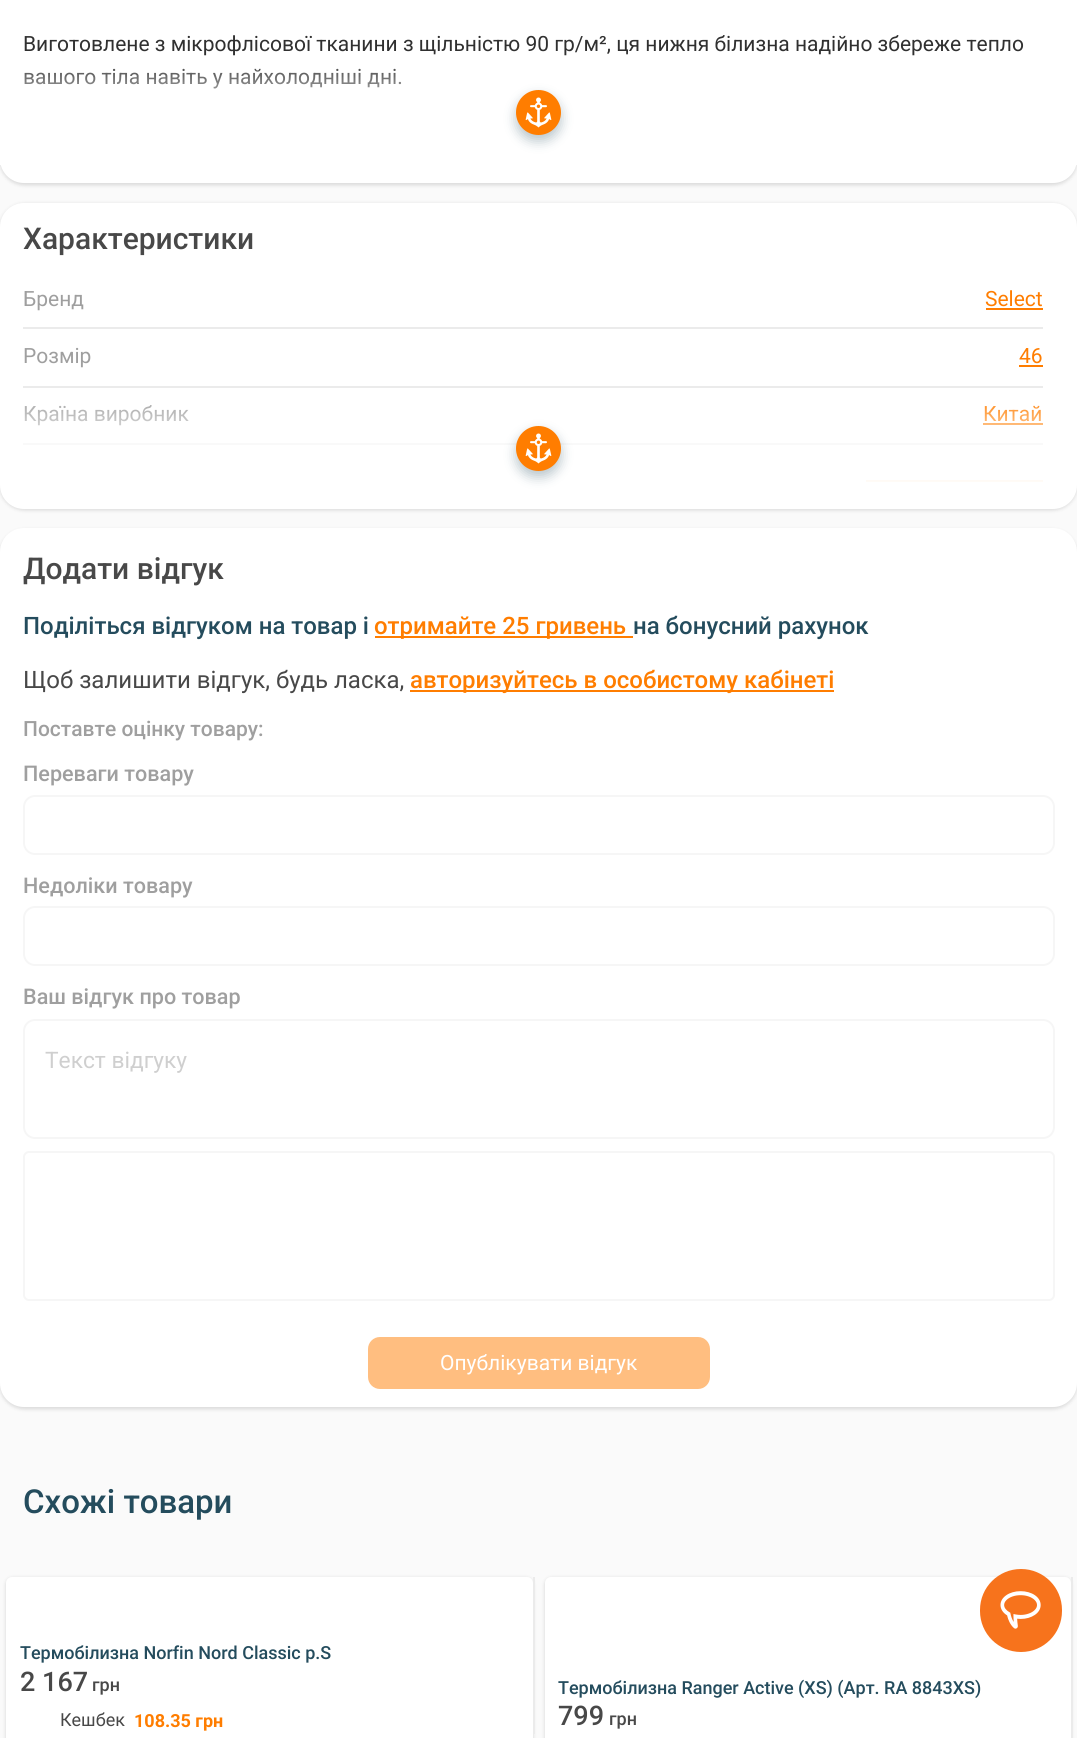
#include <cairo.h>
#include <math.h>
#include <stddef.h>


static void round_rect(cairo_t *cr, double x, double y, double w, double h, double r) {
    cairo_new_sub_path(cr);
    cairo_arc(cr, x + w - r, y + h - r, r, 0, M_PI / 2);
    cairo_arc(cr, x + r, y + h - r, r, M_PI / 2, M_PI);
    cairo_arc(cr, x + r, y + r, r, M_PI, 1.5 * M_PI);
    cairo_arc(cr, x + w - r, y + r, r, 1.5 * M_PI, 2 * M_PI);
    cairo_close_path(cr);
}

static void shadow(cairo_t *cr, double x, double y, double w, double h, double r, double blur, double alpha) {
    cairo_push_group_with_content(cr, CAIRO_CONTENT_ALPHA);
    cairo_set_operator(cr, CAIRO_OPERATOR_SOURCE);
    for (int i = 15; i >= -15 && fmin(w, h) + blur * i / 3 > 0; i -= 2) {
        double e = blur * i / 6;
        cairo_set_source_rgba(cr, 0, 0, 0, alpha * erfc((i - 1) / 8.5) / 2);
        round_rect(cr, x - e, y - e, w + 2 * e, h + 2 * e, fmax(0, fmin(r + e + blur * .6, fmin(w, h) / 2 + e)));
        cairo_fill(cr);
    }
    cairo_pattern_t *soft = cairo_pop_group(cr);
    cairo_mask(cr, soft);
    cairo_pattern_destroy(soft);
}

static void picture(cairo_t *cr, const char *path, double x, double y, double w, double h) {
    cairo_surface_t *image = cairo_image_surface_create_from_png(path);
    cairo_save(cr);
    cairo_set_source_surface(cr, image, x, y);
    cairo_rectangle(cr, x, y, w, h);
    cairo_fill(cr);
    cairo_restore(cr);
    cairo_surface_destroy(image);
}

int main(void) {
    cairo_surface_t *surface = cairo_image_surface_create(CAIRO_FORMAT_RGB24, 1077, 1738);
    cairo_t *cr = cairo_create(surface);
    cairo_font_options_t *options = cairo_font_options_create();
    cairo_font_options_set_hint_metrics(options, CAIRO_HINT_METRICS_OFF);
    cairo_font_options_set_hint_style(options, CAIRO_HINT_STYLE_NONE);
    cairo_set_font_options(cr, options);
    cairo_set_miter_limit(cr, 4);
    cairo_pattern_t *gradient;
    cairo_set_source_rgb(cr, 0.98, 0.98, 0.98);
    cairo_paint(cr);
    cairo_set_source_rgb(cr, 0, 0, 0);
    shadow(cr, 0, -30, 1077, 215, 24, 2, 0.14);
    cairo_set_source_rgb(cr, 1, 1, 1);
    round_rect(cr, 0, -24, 1077, 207, 24);
    cairo_fill(cr);
    cairo_select_font_face(cr, "Roboto", CAIRO_FONT_SLANT_NORMAL, CAIRO_FONT_WEIGHT_NORMAL);
    cairo_set_font_size(cr, 21);
    cairo_set_source_rgb(cr, 0.188, 0.188, 0.188);
    cairo_move_to(cr, 23, 51);
    cairo_show_text(cr, "Виготовлене з мікрофлісової тканини з щільністю 90 гр/м², ця нижня білизна надійно збереже тепло");
    cairo_move_to(cr, 23, 84);
    cairo_show_text(cr, "вашого тіла навіть у найхолодніші дні.");
    gradient = cairo_pattern_create_linear(539, 165, 539, 60);
    cairo_pattern_add_color_stop_rgba(gradient, 0, 1, 1, 1, 1);
    cairo_pattern_add_color_stop_rgba(gradient, 1, 1, 1, 1, 0);
    cairo_set_source(cr, gradient);
    cairo_pattern_destroy(gradient);
    cairo_rectangle(cr, 0, 69, 1077, 95);
    cairo_fill(cr);
    cairo_rectangle(cr, 0, 69, 1077, 96);
    cairo_fill(cr);
    cairo_set_source_rgb(cr, 0.141, 0.298, 0.365);
    shadow(cr, 516, 96, 45, 45, 22.5, 6, 0.32);
    cairo_set_source_rgb(cr, 1, 0.49, 0);
    cairo_arc(cr, 538.5, 112.5, 22.5, 0, 2 * M_PI);
    cairo_fill(cr);
    picture(cr, "img1.png", 525, 97, 27, 31);
    cairo_set_source_rgb(cr, 0, 0, 0);
    shadow(cr, 0, 204, 1077, 306, 24, 2, 0.14);
    cairo_set_source_rgb(cr, 1, 1, 1);
    round_rect(cr, 0, 203, 1077, 306, 24);
    cairo_fill(cr);
    cairo_select_font_face(cr, "Roboto Medium", CAIRO_FONT_SLANT_NORMAL, CAIRO_FONT_WEIGHT_NORMAL);
    cairo_set_font_size(cr, 30);
    cairo_set_source_rgb(cr, 0.282, 0.282, 0.282);
    cairo_move_to(cr, 23, 249);
    cairo_show_text(cr, "Характеристики");
    cairo_set_source_rgb(cr, 0.918, 0.918, 0.918);
    cairo_rectangle(cr, 23, 327, 1020, 2);
    cairo_fill(cr);
    cairo_select_font_face(cr, "Roboto", CAIRO_FONT_SLANT_NORMAL, CAIRO_FONT_WEIGHT_NORMAL);
    cairo_set_font_size(cr, 21);
    cairo_set_source_rgb(cr, 0.624, 0.624, 0.624);
    cairo_move_to(cr, 23, 306);
    cairo_show_text(cr, "Бренд");
    cairo_set_source_rgb(cr, 1, 0.49, 0);
    cairo_move_to(cr, 985, 306);
    cairo_show_text(cr, "Select");
    cairo_rectangle(cr, 986, 308, 57, 2);
    cairo_fill(cr);
    cairo_set_source_rgb(cr, 0.918, 0.918, 0.918);
    cairo_rectangle(cr, 23, 386, 1020, 2);
    cairo_fill(cr);
    cairo_set_source_rgb(cr, 0.624, 0.624, 0.624);
    cairo_move_to(cr, 23, 363);
    cairo_show_text(cr, "Розмір");
    cairo_set_source_rgb(cr, 1, 0.49, 0);
    cairo_move_to(cr, 1019, 363);
    cairo_show_text(cr, "46");
    cairo_rectangle(cr, 1019, 365, 24, 2);
    cairo_fill(cr);
    cairo_set_source_rgb(cr, 0.918, 0.918, 0.918);
    cairo_rectangle(cr, 23, 443, 1020, 2);
    cairo_fill(cr);
    cairo_set_source_rgb(cr, 0.624, 0.624, 0.624);
    cairo_move_to(cr, 23, 421);
    cairo_show_text(cr, "Країна виробник");
    cairo_set_source_rgb(cr, 1, 0.49, 0);
    cairo_move_to(cr, 983, 421);
    cairo_show_text(cr, "Китай");
    cairo_rectangle(cr, 983, 423, 60, 2);
    cairo_fill(cr);
    cairo_rectangle(cr, 866, 480, 177, 2);
    cairo_fill(cr);
    gradient = cairo_pattern_create_linear(539, 501, 539, 396);
    cairo_pattern_add_color_stop_rgba(gradient, 0, 1, 1, 1, 1);
    cairo_pattern_add_color_stop_rgba(gradient, 1, 1, 1, 1, 0);
    cairo_set_source(cr, gradient);
    cairo_pattern_destroy(gradient);
    cairo_rectangle(cr, 23, 405, 1020, 77);
    cairo_fill(cr);
    cairo_rectangle(cr, 23, 405, 1020, 77);
    cairo_fill(cr);
    cairo_set_source_rgb(cr, 0.141, 0.298, 0.365);
    shadow(cr, 516, 432, 45, 45, 22.5, 6, 0.32);
    cairo_set_source_rgb(cr, 1, 0.49, 0);
    cairo_arc(cr, 538.5, 448.5, 22.5, 0, 2 * M_PI);
    cairo_fill(cr);
    picture(cr, "img1.png", 525, 433, 27, 31);
    cairo_set_source_rgb(cr, 0, 0, 0);
    shadow(cr, 0, 530, 1077, 879, 24, 2, 0.14);
    cairo_set_source_rgb(cr, 1, 1, 1);
    round_rect(cr, 0, 528, 1077, 879, 24);
    cairo_fill(cr);
    cairo_select_font_face(cr, "Roboto Medium", CAIRO_FONT_SLANT_NORMAL, CAIRO_FONT_WEIGHT_NORMAL);
    cairo_set_font_size(cr, 30);
    cairo_set_source_rgb(cr, 0.282, 0.282, 0.282);
    cairo_move_to(cr, 23, 579);
    cairo_show_text(cr, "Додати відгук");
    cairo_set_font_size(cr, 24);
    cairo_set_source_rgb(cr, 0.141, 0.298, 0.365);
    cairo_move_to(cr, 23, 634);
    cairo_show_text(cr, "Поділіться відгуком на товар і");
    cairo_set_source_rgb(cr, 1, 0.49, 0);
    cairo_rectangle(cr, 375, 636, 258, 2);
    cairo_fill(cr);
    cairo_move_to(cr, 374, 634);
    cairo_show_text(cr, "отримайте 25 гривень");
    cairo_set_source_rgb(cr, 0.141, 0.298, 0.365);
    cairo_move_to(cr, 633, 634);
    cairo_show_text(cr, "на бонусний рахунок");
    cairo_select_font_face(cr, "Roboto", CAIRO_FONT_SLANT_NORMAL, CAIRO_FONT_WEIGHT_NORMAL);
    cairo_set_source_rgb(cr, 0.282, 0.282, 0.282);
    cairo_move_to(cr, 23, 688);
    cairo_show_text(cr, "Щоб залишити відгук, будь ласка,");
    cairo_set_source_rgb(cr, 1, 0.49, 0);
    cairo_rectangle(cr, 410, 690, 424, 2);
    cairo_fill(cr);
    cairo_select_font_face(cr, "Roboto Medium", CAIRO_FONT_SLANT_NORMAL, CAIRO_FONT_WEIGHT_NORMAL);
    cairo_move_to(cr, 410, 688);
    cairo_show_text(cr, "авторизуйтесь в особистому кабінеті");
    cairo_set_font_size(cr, 21);
    cairo_set_source_rgb(cr, 0.624, 0.624, 0.624);
    cairo_move_to(cr, 23, 736);
    cairo_show_text(cr, "Поставте оцінку товару:");
    cairo_set_font_size(cr, 21.6);
    cairo_move_to(cr, 23, 781);
    cairo_show_text(cr, "Переваги товару");
    round_rect(cr, 24, 796, 1030, 58, 11);
    cairo_set_source_rgb(cr, 0.961, 0.961, 0.961);
    cairo_stroke(cr);
    cairo_set_source_rgb(cr, 0.624, 0.624, 0.624);
    cairo_move_to(cr, 23, 893);
    cairo_show_text(cr, "Недоліки товару");
    round_rect(cr, 24, 907, 1030, 58, 11);
    cairo_set_source_rgb(cr, 0.961, 0.961, 0.961);
    cairo_stroke(cr);
    cairo_set_source_rgb(cr, 0.624, 0.624, 0.624);
    cairo_move_to(cr, 23, 1004);
    cairo_show_text(cr, "Ваш відгук про товар");
    round_rect(cr, 24, 1020, 1030, 118, 11);
    cairo_set_source_rgb(cr, 0.961, 0.961, 0.961);
    cairo_stroke(cr);
    cairo_select_font_face(cr, "Roboto", CAIRO_FONT_SLANT_NORMAL, CAIRO_FONT_WEIGHT_NORMAL);
    cairo_set_font_size(cr, 22.75);
    cairo_set_source_rgb(cr, 0.812, 0.812, 0.812);
    cairo_move_to(cr, 45, 1068);
    cairo_show_text(cr, "Текст відгуку");
    round_rect(cr, 24, 1152, 1030, 148, 5);
    cairo_set_source_rgb(cr, 0.961, 0.961, 0.961);
    cairo_stroke(cr);
    cairo_set_source_rgb(cr, 1, 0.745, 0.502);
    round_rect(cr, 369, 1338, 340, 50, 11);
    cairo_fill_preserve(cr);
    cairo_stroke(cr);
    cairo_set_font_size(cr, 21);
    cairo_set_source_rgb(cr, 1, 1, 1);
    cairo_move_to(cr, 440, 1370);
    cairo_show_text(cr, "Опублікувати відгук");
    cairo_select_font_face(cr, "Roboto Medium", CAIRO_FONT_SLANT_NORMAL, CAIRO_FONT_WEIGHT_NORMAL);
    cairo_set_font_size(cr, 33);
    cairo_set_source_rgb(cr, 0.141, 0.298, 0.365);
    cairo_move_to(cr, 23, 1513);
    cairo_show_text(cr, "Схожі товари");
    cairo_set_source_rgb(cr, 0, 0, 0);
    shadow(cr, 6, 1578, 527, 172, 6, 2, 0.14);
    cairo_set_source_rgb(cr, 1, 1, 1);
    round_rect(cr, 6, 1577, 527, 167, 6);
    cairo_fill(cr);
    cairo_set_font_size(cr, 18);
    cairo_set_source_rgb(cr, 0.141, 0.298, 0.365);
    cairo_move_to(cr, 20, 1659);
    cairo_show_text(cr, "Термобілизна Norfin Nord Classic р.S");
    cairo_set_font_size(cr, 27);
    cairo_set_source_rgb(cr, 0.282, 0.282, 0.282);
    cairo_move_to(cr, 20, 1691);
    cairo_show_text(cr, "2 167");
    cairo_set_font_size(cr, 18);
    cairo_move_to(cr, 92, 1691);
    cairo_show_text(cr, "грн");
    cairo_select_font_face(cr, "Roboto", CAIRO_FONT_SLANT_NORMAL, CAIRO_FONT_WEIGHT_NORMAL);
    cairo_move_to(cr, 60, 1726);
    cairo_show_text(cr, "Кешбек");
    cairo_select_font_face(cr, "Roboto", CAIRO_FONT_SLANT_NORMAL, CAIRO_FONT_WEIGHT_BOLD);
    cairo_set_source_rgb(cr, 1, 0.49, 0);
    cairo_move_to(cr, 134, 1727);
    cairo_show_text(cr, "108.35 грн");
    cairo_set_source_rgb(cr, 0.918, 0.918, 0.918);
    cairo_rectangle(cr, 533, 1577, 2, 157);
    cairo_fill(cr);
    cairo_set_source_rgb(cr, 0, 0, 0);
    shadow(cr, 545, 1578, 526, 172, 6, 2, 0.14);
    cairo_set_source_rgb(cr, 1, 1, 1);
    round_rect(cr, 545, 1577, 526, 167, 6);
    cairo_fill(cr);
    cairo_select_font_face(cr, "Roboto Medium", CAIRO_FONT_SLANT_NORMAL, CAIRO_FONT_WEIGHT_NORMAL);
    cairo_set_source_rgb(cr, 0.141, 0.298, 0.365);
    cairo_move_to(cr, 558, 1694);
    cairo_show_text(cr, "Термобілизна Ranger Active (XS) (Арт. RA 8843XS)");
    cairo_set_font_size(cr, 27);
    cairo_set_source_rgb(cr, 0.282, 0.282, 0.282);
    cairo_move_to(cr, 558, 1725);
    cairo_show_text(cr, "799");
    cairo_set_font_size(cr, 18);
    cairo_move_to(cr, 609, 1725);
    cairo_show_text(cr, "грн");
    cairo_set_source_rgb(cr, 0.918, 0.918, 0.918);
    cairo_rectangle(cr, 1071, 1577, 2, 161);
    cairo_fill(cr);
    cairo_set_source_rgb(cr, 0.965, 0.451, 0.11);
    round_rect(cr, 980, 1569, 82, 83, 41);
    cairo_fill(cr);
    picture(cr, "img2.png", 1000, 1591, 41, 38);
    cairo_surface_write_to_png(surface, "page.png");
    cairo_font_options_destroy(options);
    cairo_destroy(cr);
    cairo_surface_destroy(surface);
    return 0;
}
